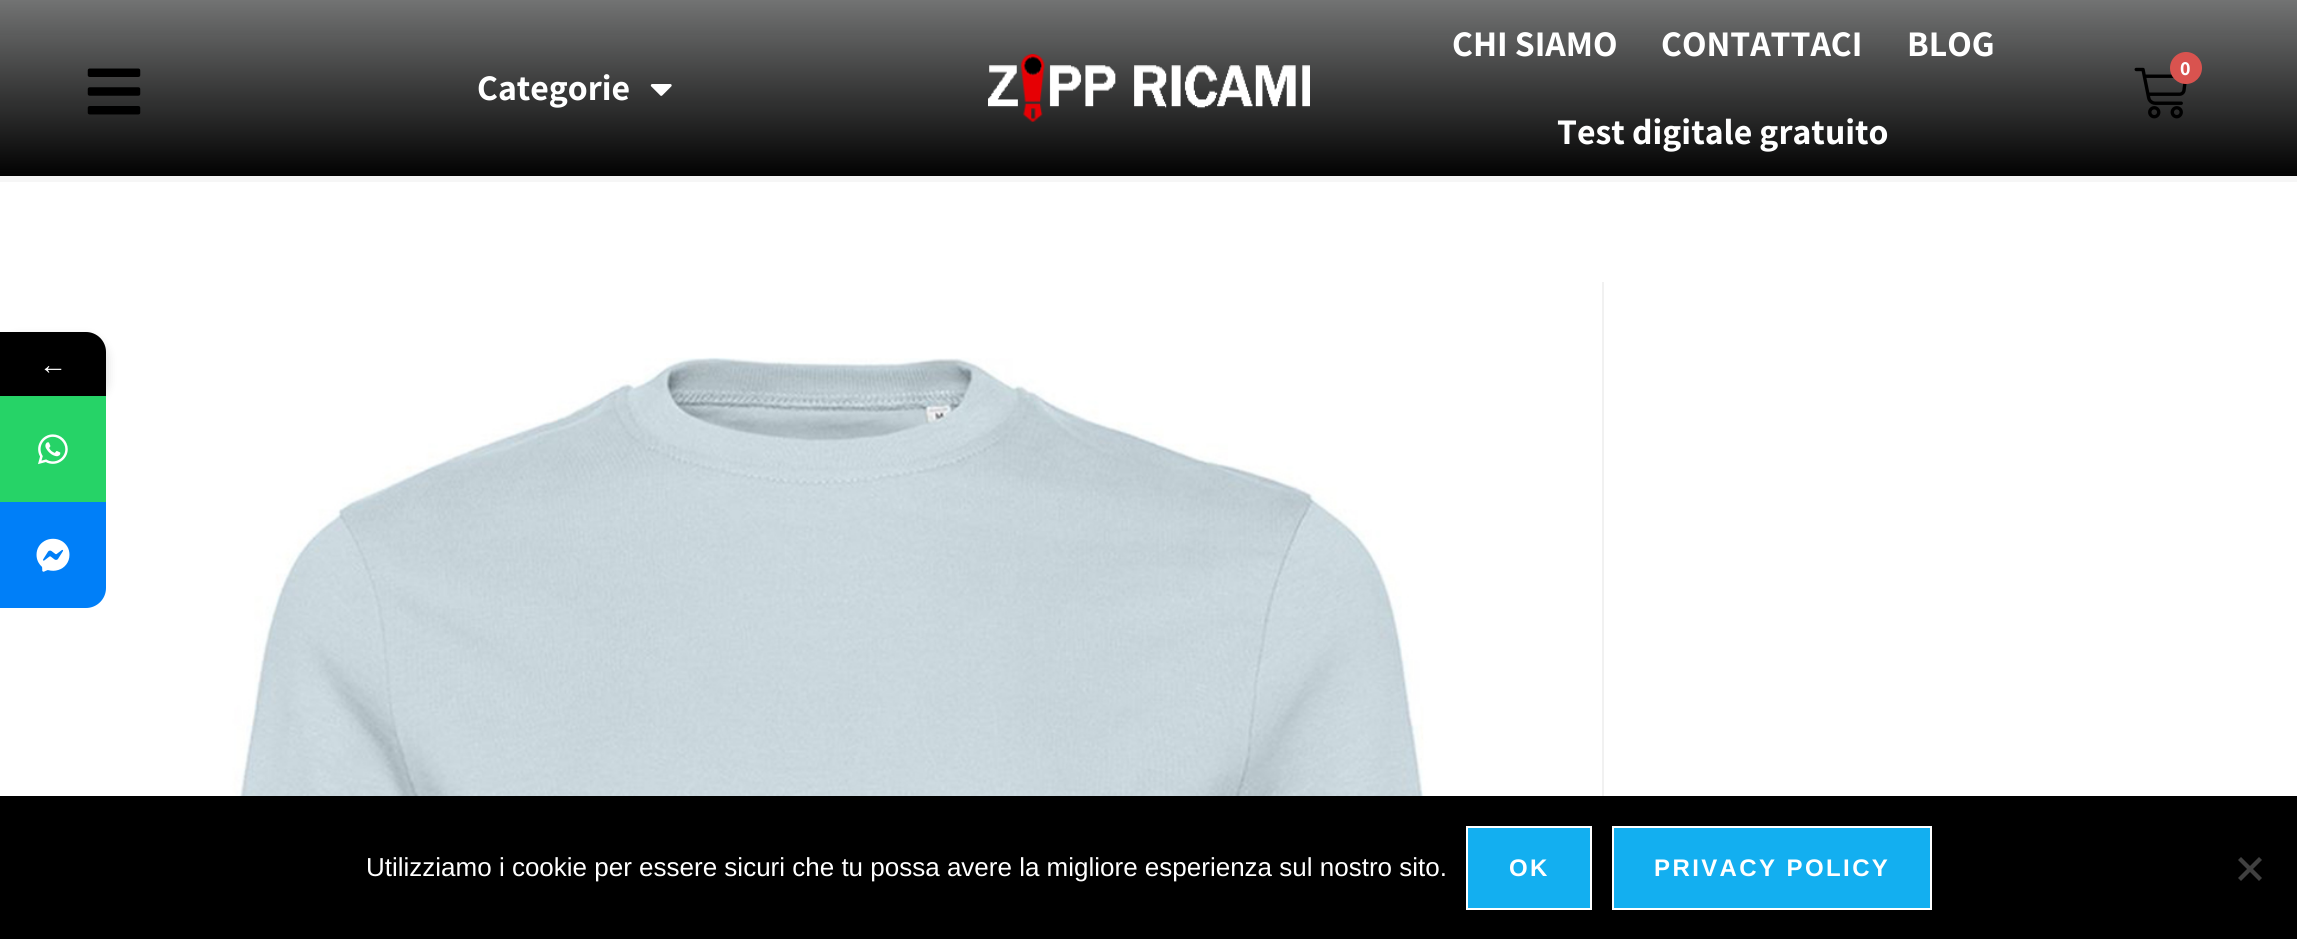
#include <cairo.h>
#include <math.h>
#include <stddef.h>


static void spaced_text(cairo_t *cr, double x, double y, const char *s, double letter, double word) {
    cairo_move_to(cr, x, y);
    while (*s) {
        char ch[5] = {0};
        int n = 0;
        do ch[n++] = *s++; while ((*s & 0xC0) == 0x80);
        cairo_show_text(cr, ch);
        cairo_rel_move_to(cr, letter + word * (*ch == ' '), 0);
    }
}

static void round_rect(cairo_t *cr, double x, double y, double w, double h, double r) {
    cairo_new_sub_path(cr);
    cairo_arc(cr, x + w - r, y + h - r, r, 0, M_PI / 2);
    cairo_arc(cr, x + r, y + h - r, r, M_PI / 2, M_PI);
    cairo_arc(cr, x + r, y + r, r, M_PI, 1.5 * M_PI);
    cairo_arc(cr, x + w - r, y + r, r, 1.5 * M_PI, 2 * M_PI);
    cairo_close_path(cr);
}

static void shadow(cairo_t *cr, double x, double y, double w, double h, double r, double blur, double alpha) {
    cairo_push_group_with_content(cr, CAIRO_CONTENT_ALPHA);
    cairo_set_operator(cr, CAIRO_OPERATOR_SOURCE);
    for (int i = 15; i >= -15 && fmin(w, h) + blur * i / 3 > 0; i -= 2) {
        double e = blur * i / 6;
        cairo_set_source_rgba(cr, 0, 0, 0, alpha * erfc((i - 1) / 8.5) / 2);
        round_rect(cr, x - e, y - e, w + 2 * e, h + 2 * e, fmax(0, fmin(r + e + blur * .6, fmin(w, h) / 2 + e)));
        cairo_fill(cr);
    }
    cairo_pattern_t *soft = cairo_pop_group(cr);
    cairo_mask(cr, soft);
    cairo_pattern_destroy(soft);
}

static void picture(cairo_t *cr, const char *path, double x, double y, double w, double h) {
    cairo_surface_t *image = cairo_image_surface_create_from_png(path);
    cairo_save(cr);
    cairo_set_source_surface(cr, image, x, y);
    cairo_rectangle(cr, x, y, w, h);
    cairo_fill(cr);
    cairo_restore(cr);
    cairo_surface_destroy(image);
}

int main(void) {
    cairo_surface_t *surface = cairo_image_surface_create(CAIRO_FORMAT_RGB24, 2297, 939);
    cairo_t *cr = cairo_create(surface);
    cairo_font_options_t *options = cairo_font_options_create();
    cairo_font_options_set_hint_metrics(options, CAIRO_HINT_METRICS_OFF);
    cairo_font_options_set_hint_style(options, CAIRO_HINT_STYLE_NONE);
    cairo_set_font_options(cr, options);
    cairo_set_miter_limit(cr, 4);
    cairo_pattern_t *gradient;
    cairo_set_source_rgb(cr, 1, 1, 1);
    cairo_paint(cr);
    cairo_set_source_rgb(cr, 0.961, 0.961, 0.961);
    cairo_rectangle(cr, 0, 104, 2297, 78);
    cairo_fill(cr);
    gradient = cairo_pattern_create_linear(1149, 0, 1149, 176);
    cairo_pattern_add_color_stop_rgba(gradient, 0, 0.447, 0.451, 0.451, 1);
    cairo_pattern_add_color_stop_rgba(gradient, 1, 0, 0, 0, 0.99);
    cairo_set_source(cr, gradient);
    cairo_pattern_destroy(gradient);
    cairo_rectangle(cr, 0, 0, 2297, 176);
    cairo_fill(cr);
    picture(cr, "img1.png", 87, 68, 54, 47);
    cairo_select_font_face(cr, "Assistant", CAIRO_FONT_SLANT_NORMAL, CAIRO_FONT_WEIGHT_BOLD);
    cairo_set_font_size(cr, 36);
    cairo_set_source_rgb(cr, 1, 1, 1);
    cairo_move_to(cr, 477, 100);
    cairo_show_text(cr, "Categorie");
    picture(cr, "img2.png", 650, 84, 22, 12);
    picture(cr, "img3.png", 988, 54, 322, 68);
    cairo_move_to(cr, 1452, 56);
    cairo_show_text(cr, "CHI SIAMO");
    cairo_move_to(cr, 1661, 56);
    cairo_show_text(cr, "CONTATTACI");
    cairo_move_to(cr, 1907, 56);
    cairo_show_text(cr, "BLOG");
    cairo_move_to(cr, 1557, 144);
    cairo_show_text(cr, "Test digitale gratuito");
    picture(cr, "img4.png", 2134, 67, 53, 52);
    cairo_set_source_rgb(cr, 0.851, 0.325, 0.31);
    cairo_arc(cr, 2186, 68, 16, 0, 2 * M_PI);
    cairo_fill(cr);
    cairo_set_font_size(cr, 20);
    cairo_set_source_rgb(cr, 1, 1, 1);
    cairo_move_to(cr, 2180, 75);
    cairo_show_text(cr, "0");
    cairo_set_source_rgb(cr, 0.945, 0.945, 0.945);
    cairo_rectangle(cr, 1602, 282, 2, 514);
    cairo_fill(cr);
    picture(cr, "img5.png", 224, 357, 1219, 439);
    cairo_set_source_rgb(cr, 0, 0, 0);
    shadow(cr, 0, 338, 106, 64, 20, 6, 0.16);
    cairo_set_source_rgb(cr, 0, 0, 0);
    cairo_new_path(cr);
    cairo_move_to(cr, 0, 332);
    cairo_line_to(cr, 86, 332);
    cairo_curve_to(cr, 97, 332, 106, 341, 106, 352);
    cairo_line_to(cr, 106, 396);
    cairo_line_to(cr, 0, 396);
    cairo_close_path(cr);
    cairo_fill(cr);
    cairo_select_font_face(cr, "Liberation Serif", CAIRO_FONT_SLANT_NORMAL, CAIRO_FONT_WEIGHT_NORMAL);
    cairo_set_font_size(cr, 28);
    cairo_set_source_rgb(cr, 1, 1, 1);
    cairo_move_to(cr, 39, 374);
    cairo_show_text(cr, "←");
    cairo_set_source_rgb(cr, 0.149, 0.827, 0.404);
    cairo_rectangle(cr, 0, 396, 106, 106);
    cairo_fill(cr);
    picture(cr, "img6.png", 38, 434, 30, 31);
    cairo_set_source_rgb(cr, 0, 0.498, 0.969);
    cairo_new_path(cr);
    cairo_move_to(cr, 0, 502);
    cairo_line_to(cr, 106, 502);
    cairo_line_to(cr, 106, 588);
    cairo_curve_to(cr, 106, 599, 97, 608, 86, 608);
    cairo_line_to(cr, 0, 608);
    cairo_close_path(cr);
    cairo_fill(cr);
    picture(cr, "img7.png", 36, 538, 34, 34);
    cairo_set_source_rgb(cr, 0, 0, 0);
    cairo_rectangle(cr, 0, 796, 2297, 143);
    cairo_fill(cr);
    cairo_select_font_face(cr, "Liberation Sans", CAIRO_FONT_SLANT_NORMAL, CAIRO_FONT_WEIGHT_NORMAL);
    cairo_set_font_size(cr, 26);
    cairo_set_source_rgb(cr, 1, 1, 1);
    cairo_move_to(cr, 366, 876);
    cairo_show_text(cr, "Utilizziamo i cookie per essere sicuri che tu possa avere la migliore esperienza sul nostro sito.");
    cairo_set_source_rgb(cr, 0.075, 0.686, 0.941);
    cairo_rectangle(cr, 1467, 827, 124, 82);
    cairo_fill_preserve(cr);
    cairo_set_source_rgb(cr, 1, 1, 1);
    cairo_stroke(cr);
    cairo_select_font_face(cr, "Liberation Sans", CAIRO_FONT_SLANT_NORMAL, CAIRO_FONT_WEIGHT_BOLD);
    cairo_set_font_size(cr, 24);
    spaced_text(cr, 1509, 876, "OK", 2.4, 0);
    cairo_set_source_rgb(cr, 0.075, 0.686, 0.941);
    cairo_rectangle(cr, 1613, 827, 318, 82);
    cairo_fill_preserve(cr);
    cairo_set_source_rgb(cr, 1, 1, 1);
    cairo_stroke(cr);
    spaced_text(cr, 1654, 876, "PRIVACY POLICY", 2.4, 0);
    cairo_set_source_rgb(cr, 0.251, 0.251, 0.251);
    cairo_new_path(cr);
    cairo_move_to(cr, 2259, 857);
    cairo_line_to(cr, 2262, 860);
    cairo_line_to(cr, 2241, 881);
    cairo_line_to(cr, 2238, 878);
    cairo_close_path(cr);
    cairo_fill(cr);
    cairo_new_path(cr);
    cairo_move_to(cr, 2238, 860);
    cairo_line_to(cr, 2241, 857);
    cairo_line_to(cr, 2262, 878);
    cairo_line_to(cr, 2259, 881);
    cairo_close_path(cr);
    cairo_fill(cr);
    cairo_surface_write_to_png(surface, "page.png");
    cairo_font_options_destroy(options);
    cairo_destroy(cr);
    cairo_surface_destroy(surface);
    return 0;
}
